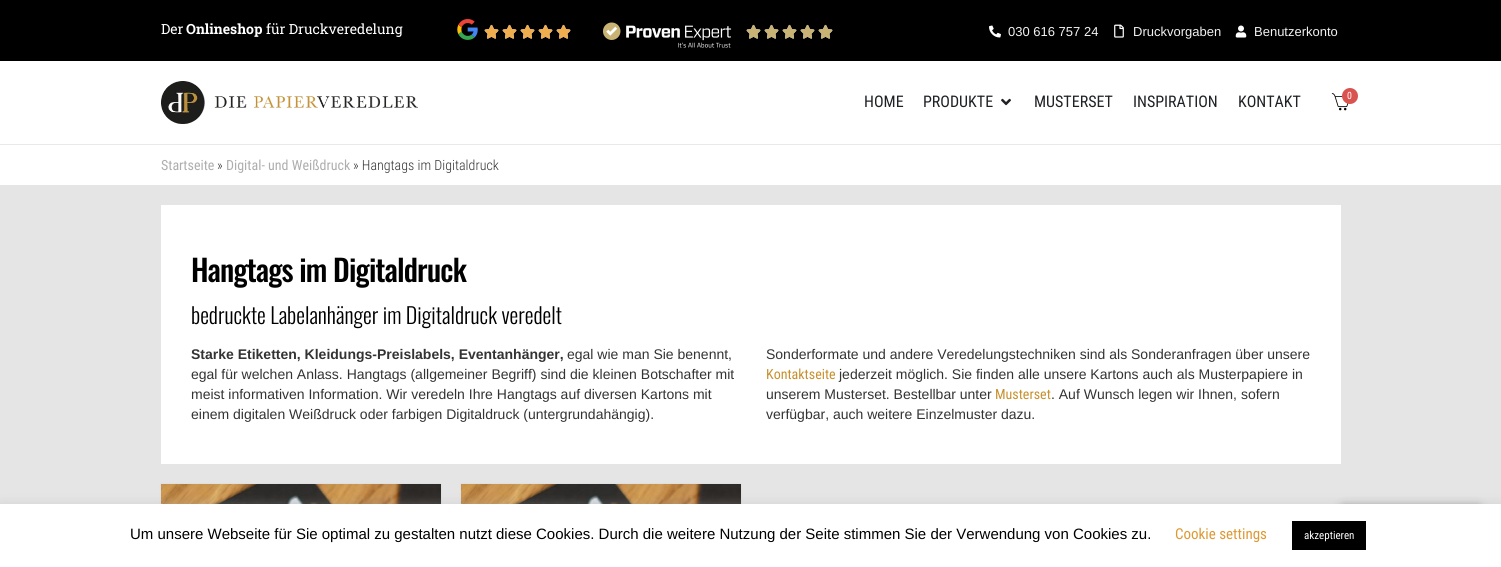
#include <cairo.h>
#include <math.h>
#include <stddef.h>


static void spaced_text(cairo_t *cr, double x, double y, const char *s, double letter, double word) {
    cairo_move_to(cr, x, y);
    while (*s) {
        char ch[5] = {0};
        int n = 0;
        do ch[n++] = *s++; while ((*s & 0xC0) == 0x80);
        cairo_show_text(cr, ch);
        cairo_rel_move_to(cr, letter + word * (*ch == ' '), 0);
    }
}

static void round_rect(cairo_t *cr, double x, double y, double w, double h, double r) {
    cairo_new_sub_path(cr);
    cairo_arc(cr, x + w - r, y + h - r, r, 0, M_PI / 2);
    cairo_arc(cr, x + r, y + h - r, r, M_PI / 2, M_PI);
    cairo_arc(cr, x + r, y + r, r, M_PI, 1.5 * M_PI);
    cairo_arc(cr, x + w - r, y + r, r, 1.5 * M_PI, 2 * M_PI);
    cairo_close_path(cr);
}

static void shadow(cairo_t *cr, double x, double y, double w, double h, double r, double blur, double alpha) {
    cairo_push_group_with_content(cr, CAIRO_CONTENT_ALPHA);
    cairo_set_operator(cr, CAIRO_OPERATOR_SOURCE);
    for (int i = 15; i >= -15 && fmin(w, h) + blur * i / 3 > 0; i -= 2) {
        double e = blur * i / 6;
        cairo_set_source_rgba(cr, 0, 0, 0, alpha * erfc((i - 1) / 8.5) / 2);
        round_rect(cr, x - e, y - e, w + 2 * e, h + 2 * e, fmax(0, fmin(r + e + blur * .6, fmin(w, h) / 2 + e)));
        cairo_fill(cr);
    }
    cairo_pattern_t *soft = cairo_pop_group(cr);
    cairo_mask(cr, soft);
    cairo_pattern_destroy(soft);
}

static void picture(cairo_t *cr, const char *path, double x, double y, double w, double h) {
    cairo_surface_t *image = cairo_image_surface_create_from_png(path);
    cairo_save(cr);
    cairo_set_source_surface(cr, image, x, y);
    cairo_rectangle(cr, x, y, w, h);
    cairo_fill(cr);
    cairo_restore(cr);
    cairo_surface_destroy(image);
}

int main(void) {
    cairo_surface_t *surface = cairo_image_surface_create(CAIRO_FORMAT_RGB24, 1501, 567);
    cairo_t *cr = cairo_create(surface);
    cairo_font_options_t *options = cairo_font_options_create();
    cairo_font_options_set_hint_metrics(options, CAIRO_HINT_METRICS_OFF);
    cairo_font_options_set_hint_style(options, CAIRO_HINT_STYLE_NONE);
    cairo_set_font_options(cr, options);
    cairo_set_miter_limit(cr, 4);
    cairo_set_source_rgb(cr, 0.898, 0.898, 0.898);
    cairo_paint(cr);
    cairo_set_source_rgb(cr, 0, 0, 0);
    cairo_rectangle(cr, 0, 0, 1501, 61);
    cairo_fill(cr);
    cairo_select_font_face(cr, "Roboto Slab", CAIRO_FONT_SLANT_NORMAL, CAIRO_FONT_WEIGHT_NORMAL);
    cairo_set_font_size(cr, 14);
    cairo_set_source_rgb(cr, 1, 1, 1);
    cairo_move_to(cr, 161, 34);
    cairo_show_text(cr, "Der");
    cairo_select_font_face(cr, "Roboto Slab", CAIRO_FONT_SLANT_NORMAL, CAIRO_FONT_WEIGHT_BOLD);
    cairo_move_to(cr, 186, 34);
    cairo_show_text(cr, "Onlineshop");
    cairo_select_font_face(cr, "Roboto Slab", CAIRO_FONT_SLANT_NORMAL, CAIRO_FONT_WEIGHT_NORMAL);
    cairo_move_to(cr, 266, 34);
    cairo_show_text(cr, "für Druckveredelung");
    picture(cr, "img1.png", 457, 19, 21, 21);
    picture(cr, "img2.png", 484, 24, 15, 15);
    picture(cr, "img3.png", 484, 24, 15, 15);
    picture(cr, "img2.png", 502, 24, 15, 15);
    picture(cr, "img3.png", 502, 24, 15, 15);
    picture(cr, "img2.png", 520, 24, 15, 15);
    picture(cr, "img3.png", 520, 24, 15, 15);
    picture(cr, "img2.png", 538, 24, 15, 15);
    picture(cr, "img3.png", 538, 24, 15, 15);
    picture(cr, "img2.png", 556, 24, 15, 15);
    picture(cr, "img3.png", 556, 24, 15, 15);
    picture(cr, "img4.png", 602, 22, 130, 26);
    picture(cr, "img2.png", 746, 24, 15, 15);
    picture(cr, "img5.png", 746, 24, 15, 15);
    picture(cr, "img2.png", 764, 24, 15, 15);
    picture(cr, "img5.png", 764, 24, 15, 15);
    picture(cr, "img2.png", 782, 24, 15, 15);
    picture(cr, "img5.png", 782, 24, 15, 15);
    picture(cr, "img2.png", 800, 24, 15, 15);
    picture(cr, "img5.png", 800, 24, 15, 15);
    picture(cr, "img2.png", 818, 24, 15, 15);
    picture(cr, "img5.png", 818, 24, 15, 15);
    picture(cr, "img6.png", 989, 25, 12, 13);
    cairo_select_font_face(cr, "Liberation Sans", CAIRO_FONT_SLANT_NORMAL, CAIRO_FONT_WEIGHT_NORMAL);
    cairo_set_font_size(cr, 13);
    cairo_set_source_rgb(cr, 0.949, 0.949, 0.949);
    cairo_move_to(cr, 1008, 36);
    cairo_show_text(cr, "030 616 757 24");
    picture(cr, "img7.png", 1114, 24, 10, 14);
    cairo_move_to(cr, 1133, 36);
    cairo_show_text(cr, "Druckvorgaben");
    picture(cr, "img8.png", 1235, 25, 12, 13);
    cairo_move_to(cr, 1254, 36);
    cairo_show_text(cr, "Benutzerkonto");
    cairo_set_source_rgb(cr, 1, 1, 1);
    cairo_rectangle(cr, 0, 61, 1501, 83);
    cairo_fill(cr);
    cairo_set_source_rgb(cr, 0.914, 0.914, 0.914);
    cairo_rectangle(cr, 0, 144, 1501, 1);
    cairo_fill(cr);
    picture(cr, "img9.png", 161, 81, 257, 43);
    cairo_select_font_face(cr, "Roboto Condensed", CAIRO_FONT_SLANT_NORMAL, CAIRO_FONT_WEIGHT_NORMAL);
    cairo_set_font_size(cr, 16);
    cairo_set_source_rgb(cr, 0.122, 0.129, 0.141);
    cairo_move_to(cr, 864, 107);
    cairo_show_text(cr, "HOME");
    cairo_move_to(cr, 923, 107);
    cairo_show_text(cr, "PRODUKTE");
    picture(cr, "img10.png", 1001, 98, 10, 8);
    cairo_move_to(cr, 1034, 107);
    cairo_show_text(cr, "MUSTERSET");
    cairo_move_to(cr, 1133, 107);
    cairo_show_text(cr, "INSPIRATION");
    cairo_move_to(cr, 1238, 107);
    cairo_show_text(cr, "KONTAKT");
    picture(cr, "img11.png", 1331, 93, 18, 18);
    cairo_set_source_rgb(cr, 0.851, 0.325, 0.31);
    cairo_arc(cr, 1350, 96, 8, 0, 2 * M_PI);
    cairo_fill(cr);
    cairo_set_font_size(cr, 10);
    cairo_set_source_rgb(cr, 1, 1, 1);
    cairo_move_to(cr, 1347, 99);
    cairo_show_text(cr, "0");
    cairo_rectangle(cr, 0, 145, 1501, 40);
    cairo_fill(cr);
    cairo_set_font_size(cr, 14);
    cairo_set_source_rgb(cr, 0.682, 0.682, 0.682);
    cairo_move_to(cr, 161, 170);
    cairo_show_text(cr, "Startseite");
    cairo_select_font_face(cr, "Roboto Condensed Light", CAIRO_FONT_SLANT_NORMAL, CAIRO_FONT_WEIGHT_NORMAL);
    cairo_set_source_rgb(cr, 0.2, 0.2, 0.2);
    cairo_move_to(cr, 217, 170);
    cairo_show_text(cr, "»");
    cairo_select_font_face(cr, "Roboto Condensed", CAIRO_FONT_SLANT_NORMAL, CAIRO_FONT_WEIGHT_NORMAL);
    cairo_set_source_rgb(cr, 0.682, 0.682, 0.682);
    cairo_move_to(cr, 226, 170);
    cairo_show_text(cr, "Digital- und Weißdruck");
    cairo_select_font_face(cr, "Roboto Condensed Light", CAIRO_FONT_SLANT_NORMAL, CAIRO_FONT_WEIGHT_NORMAL);
    cairo_set_source_rgb(cr, 0.2, 0.2, 0.2);
    cairo_move_to(cr, 353, 170);
    cairo_show_text(cr, "» Hangtags im Digitaldruck");
    cairo_set_source_rgb(cr, 1, 1, 1);
    cairo_rectangle(cr, 161, 205, 1180, 259);
    cairo_fill(cr);
    cairo_select_font_face(cr, "Oswald Medium", CAIRO_FONT_SLANT_NORMAL, CAIRO_FONT_WEIGHT_NORMAL);
    cairo_set_font_size(cr, 30);
    cairo_set_source_rgb(cr, 0, 0, 0);
    spaced_text(cr, 191, 282, "Hangtags im Digitaldruck", -0.8, 0);
    cairo_select_font_face(cr, "Oswald Light", CAIRO_FONT_SLANT_NORMAL, CAIRO_FONT_WEIGHT_NORMAL);
    cairo_set_font_size(cr, 22);
    cairo_move_to(cr, 191, 324);
    cairo_show_text(cr, "bedruckte Labelanhänger im Digitaldruck veredelt");
    cairo_select_font_face(cr, "Liberation Sans", CAIRO_FONT_SLANT_NORMAL, CAIRO_FONT_WEIGHT_BOLD);
    cairo_set_font_size(cr, 14);
    cairo_set_source_rgb(cr, 0.2, 0.2, 0.2);
    cairo_move_to(cr, 191, 359);
    cairo_show_text(cr, "Starke Etiketten, Kleidungs-Preislabels, Eventanhänger,");
    cairo_select_font_face(cr, "Liberation Sans", CAIRO_FONT_SLANT_NORMAL, CAIRO_FONT_WEIGHT_NORMAL);
    cairo_move_to(cr, 567, 359);
    cairo_show_text(cr, "egal wie man Sie benennt,");
    cairo_move_to(cr, 191, 379);
    cairo_show_text(cr, "egal für welchen Anlass. Hangtags (allgemeiner Begriff) sind die kleinen Botschafter mit");
    cairo_move_to(cr, 191, 399);
    cairo_show_text(cr, "meist informativen Information. Wir veredeln Ihre Hangtags auf diversen Kartons mit");
    cairo_move_to(cr, 191, 419);
    cairo_show_text(cr, "einem digitalen Weißdruck oder farbigen Digitaldruck (untergrundahängig).");
    cairo_move_to(cr, 766, 359);
    cairo_show_text(cr, "Sonderformate und andere Veredelungstechniken sind als Sonderanfragen über unsere");
    cairo_select_font_face(cr, "Roboto Condensed", CAIRO_FONT_SLANT_NORMAL, CAIRO_FONT_WEIGHT_NORMAL);
    cairo_set_source_rgb(cr, 0.78, 0.565, 0.176);
    cairo_move_to(cr, 766, 379);
    cairo_show_text(cr, "Kontaktseite");
    cairo_select_font_face(cr, "Liberation Sans", CAIRO_FONT_SLANT_NORMAL, CAIRO_FONT_WEIGHT_NORMAL);
    cairo_set_source_rgb(cr, 0.2, 0.2, 0.2);
    cairo_move_to(cr, 839, 379);
    cairo_show_text(cr, "jederzeit möglich. Sie finden alle unsere Kartons auch als Musterpapiere in");
    cairo_move_to(cr, 766, 399);
    cairo_show_text(cr, "unserem Musterset. Bestellbar unter");
    cairo_select_font_face(cr, "Roboto Condensed", CAIRO_FONT_SLANT_NORMAL, CAIRO_FONT_WEIGHT_NORMAL);
    cairo_set_source_rgb(cr, 0.78, 0.565, 0.176);
    cairo_move_to(cr, 995, 399);
    cairo_show_text(cr, "Musterset");
    cairo_select_font_face(cr, "Liberation Sans", CAIRO_FONT_SLANT_NORMAL, CAIRO_FONT_WEIGHT_NORMAL);
    cairo_set_source_rgb(cr, 0.2, 0.2, 0.2);
    cairo_move_to(cr, 1051, 399);
    cairo_show_text(cr, ". Auf Wunsch legen wir Ihnen, sofern");
    cairo_move_to(cr, 766, 419);
    cairo_show_text(cr, "verfügbar, auch weitere Einzelmuster dazu.");
    cairo_set_source_rgb(cr, 0.8, 0.8, 0.8);
    shadow(cr, 161, 484, 280, 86, 0, 1, 0.5);
    picture(cr, "img12.png", 161, 484, 280, 20);
    shadow(cr, 461, 484, 280, 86, 0, 1, 0.5);
    picture(cr, "img12.png", 461, 484, 280, 20);
    cairo_set_source_rgb(cr, 0.675, 0.671, 0.671);
    shadow(cr, 0, 503, 1501, 63, 0, 5, 0.3);
    cairo_set_source_rgb(cr, 0, 0, 0);
    shadow(cr, 1341, 507, 140, 50, 3, 5, 0.38);
    cairo_set_source_rgb(cr, 1, 1, 1);
    cairo_rectangle(cr, 0, 504, 1501, 63);
    cairo_fill(cr);
    cairo_set_font_size(cr, 15);
    cairo_set_source_rgb(cr, 0, 0, 0);
    cairo_move_to(cr, 130, 539);
    cairo_show_text(cr, "Um unsere Webseite für Sie optimal zu gestalten nutzt diese Cookies. Durch die weitere Nutzung der Seite stimmen Sie der Verwendung von Cookies zu.");
    cairo_select_font_face(cr, "Roboto Condensed", CAIRO_FONT_SLANT_NORMAL, CAIRO_FONT_WEIGHT_NORMAL);
    cairo_set_source_rgb(cr, 0.867, 0.6, 0.2);
    cairo_move_to(cr, 1175, 539);
    cairo_show_text(cr, "Cookie settings");
    cairo_set_source_rgb(cr, 0, 0, 0);
    cairo_rectangle(cr, 1292, 521, 74, 29);
    cairo_fill(cr);
    cairo_set_font_size(cr, 11);
    cairo_set_source_rgb(cr, 1, 1, 1);
    cairo_move_to(cr, 1304, 539);
    cairo_show_text(cr, "akzeptieren");
    cairo_surface_write_to_png(surface, "page.png");
    cairo_font_options_destroy(options);
    cairo_destroy(cr);
    cairo_surface_destroy(surface);
    return 0;
}
